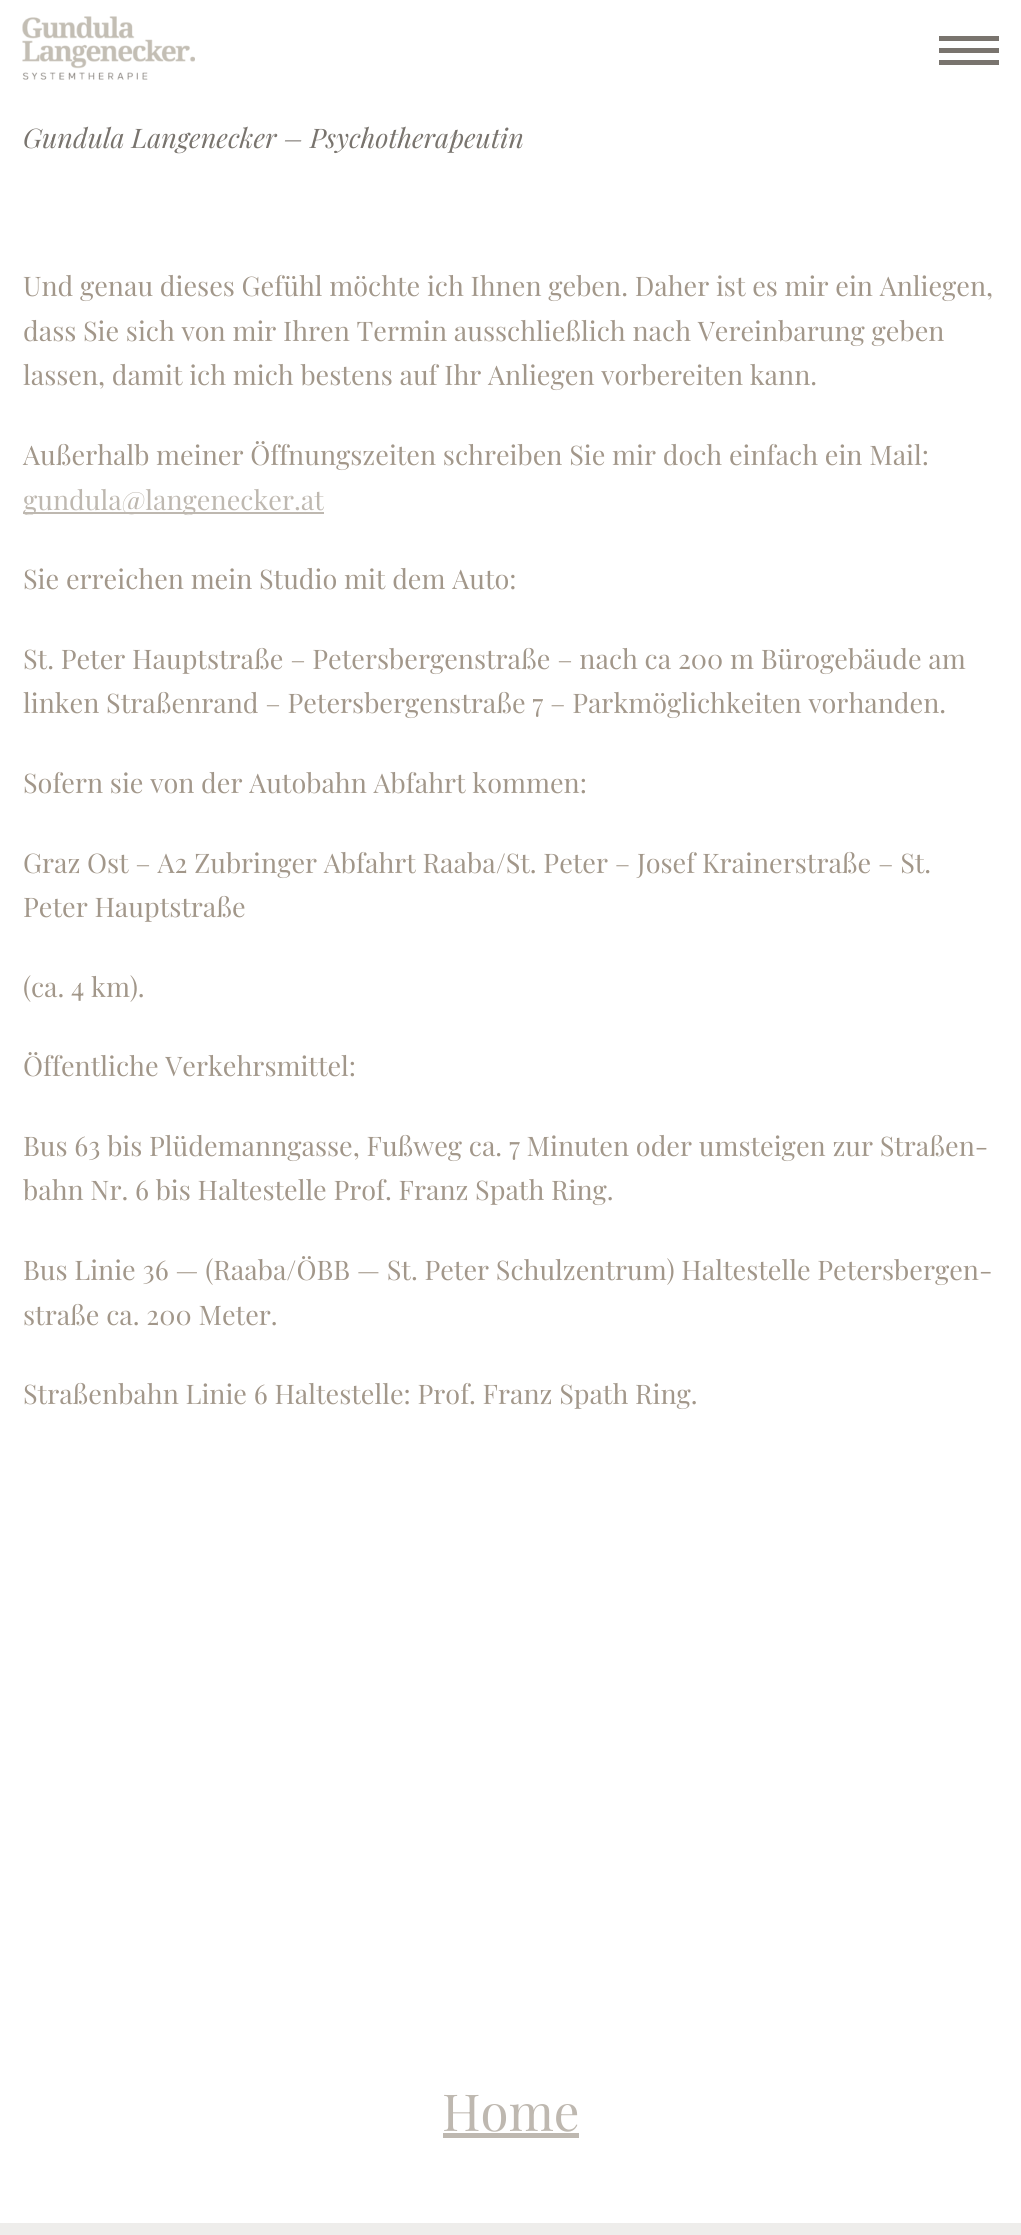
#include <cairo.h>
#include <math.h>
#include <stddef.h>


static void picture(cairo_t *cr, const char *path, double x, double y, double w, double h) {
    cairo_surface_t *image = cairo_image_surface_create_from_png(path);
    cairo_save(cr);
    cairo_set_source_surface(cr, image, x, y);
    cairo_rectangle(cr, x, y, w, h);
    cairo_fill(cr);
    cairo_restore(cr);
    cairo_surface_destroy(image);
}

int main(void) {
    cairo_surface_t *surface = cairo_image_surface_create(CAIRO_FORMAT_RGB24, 1021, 2235);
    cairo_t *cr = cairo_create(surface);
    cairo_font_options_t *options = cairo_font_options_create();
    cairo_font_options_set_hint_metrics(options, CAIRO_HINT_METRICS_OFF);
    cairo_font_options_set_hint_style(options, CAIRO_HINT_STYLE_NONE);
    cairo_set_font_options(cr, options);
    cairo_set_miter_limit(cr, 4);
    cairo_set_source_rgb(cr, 1, 1, 1);
    cairo_paint(cr);
    picture(cr, "img1.png", 22, 16, 173, 64);
    cairo_set_source_rgb(cr, 0.475, 0.455, 0.431);
    cairo_rectangle(cr, 939, 36, 60, 5);
    cairo_fill(cr);
    cairo_rectangle(cr, 939, 48, 60, 5);
    cairo_fill(cr);
    cairo_rectangle(cr, 939, 60, 60, 5);
    cairo_fill(cr);
    cairo_select_font_face(cr, "Playfair Display", CAIRO_FONT_SLANT_ITALIC, CAIRO_FONT_WEIGHT_NORMAL);
    cairo_set_font_size(cr, 27);
    cairo_move_to(cr, 23, 148);
    cairo_show_text(cr, "Gundula Langenecker – Psychotherapeutin");
    cairo_select_font_face(cr, "Playfair Display", CAIRO_FONT_SLANT_NORMAL, CAIRO_FONT_WEIGHT_NORMAL);
    cairo_set_source_rgb(cr, 0.635, 0.592, 0.541);
    cairo_move_to(cr, 23, 296);
    cairo_show_text(cr, "Und genau dieses Gefühl möchte ich Ihnen geben. Daher ist es mir ein Anliegen,");
    cairo_move_to(cr, 23, 341);
    cairo_show_text(cr, "dass Sie sich von mir Ihren Termin ausschließlich nach Vereinbarung geben");
    cairo_move_to(cr, 23, 385);
    cairo_show_text(cr, "lassen, damit ich mich bestens auf Ihr Anliegen vorbereiten kann.");
    cairo_move_to(cr, 23, 465);
    cairo_show_text(cr, "Außerhalb meiner Öffnungszeiten schreiben Sie mir doch einfach ein Mail:");
    cairo_set_source_rgb(cr, 0.745, 0.722, 0.69);
    cairo_rectangle(cr, 23, 512, 301, 2);
    cairo_fill(cr);
    cairo_move_to(cr, 23, 510);
    cairo_show_text(cr, "gundula@langenecker.at");
    cairo_set_source_rgb(cr, 0.635, 0.592, 0.541);
    cairo_move_to(cr, 23, 589);
    cairo_show_text(cr, "Sie erreichen mein Studio mit dem Auto:");
    cairo_move_to(cr, 23, 669);
    cairo_show_text(cr, "St. Peter Hauptstraße – Petersbergenstraße – nach ca 200 m Bürogebäude am");
    cairo_move_to(cr, 23, 713);
    cairo_show_text(cr, "linken Straßenrand – Petersbergenstraße 7 – Parkmöglichkeiten vorhanden.");
    cairo_move_to(cr, 23, 793);
    cairo_show_text(cr, "Sofern sie von der Autobahn Abfahrt kommen:");
    cairo_move_to(cr, 23, 873);
    cairo_show_text(cr, "Graz Ost – A2 Zubringer Abfahrt Raaba/St. Peter – Josef Krainerstraße – St.");
    cairo_move_to(cr, 23, 917);
    cairo_show_text(cr, "Peter Hauptstraße");
    cairo_move_to(cr, 23, 997);
    cairo_show_text(cr, "(ca. 4 km).");
    cairo_move_to(cr, 23, 1076);
    cairo_show_text(cr, "Öffentliche Verkehrsmittel:");
    cairo_move_to(cr, 23, 1156);
    cairo_show_text(cr, "Bus 63 bis Plüdemanngasse, Fußweg ca. 7 Minuten oder umsteigen zur Straßen-");
    cairo_move_to(cr, 23, 1200);
    cairo_show_text(cr, "bahn Nr. 6 bis Haltestelle Prof. Franz Spath Ring.");
    cairo_move_to(cr, 23, 1280);
    cairo_show_text(cr, "Bus Linie 36 — (Raaba/ÖBB — St. Peter Schulzentrum) Haltestelle Petersbergen-");
    cairo_move_to(cr, 23, 1325);
    cairo_show_text(cr, "straße ca. 200 Meter.");
    cairo_move_to(cr, 23, 1404);
    cairo_show_text(cr, "Straßenbahn Linie 6 Haltestelle: Prof. Franz Spath Ring.");
    cairo_set_font_size(cr, 51);
    cairo_set_source_rgb(cr, 0.745, 0.722, 0.69);
    cairo_move_to(cr, 442, 2131);
    cairo_show_text(cr, "Home");
    cairo_rectangle(cr, 443, 2133, 136, 5);
    cairo_fill(cr);
    cairo_set_source_rgb(cr, 0.933, 0.929, 0.918);
    cairo_rectangle(cr, 0, 2223, 1021, 12);
    cairo_fill(cr);
    cairo_surface_write_to_png(surface, "page.png");
    cairo_font_options_destroy(options);
    cairo_destroy(cr);
    cairo_surface_destroy(surface);
    return 0;
}
